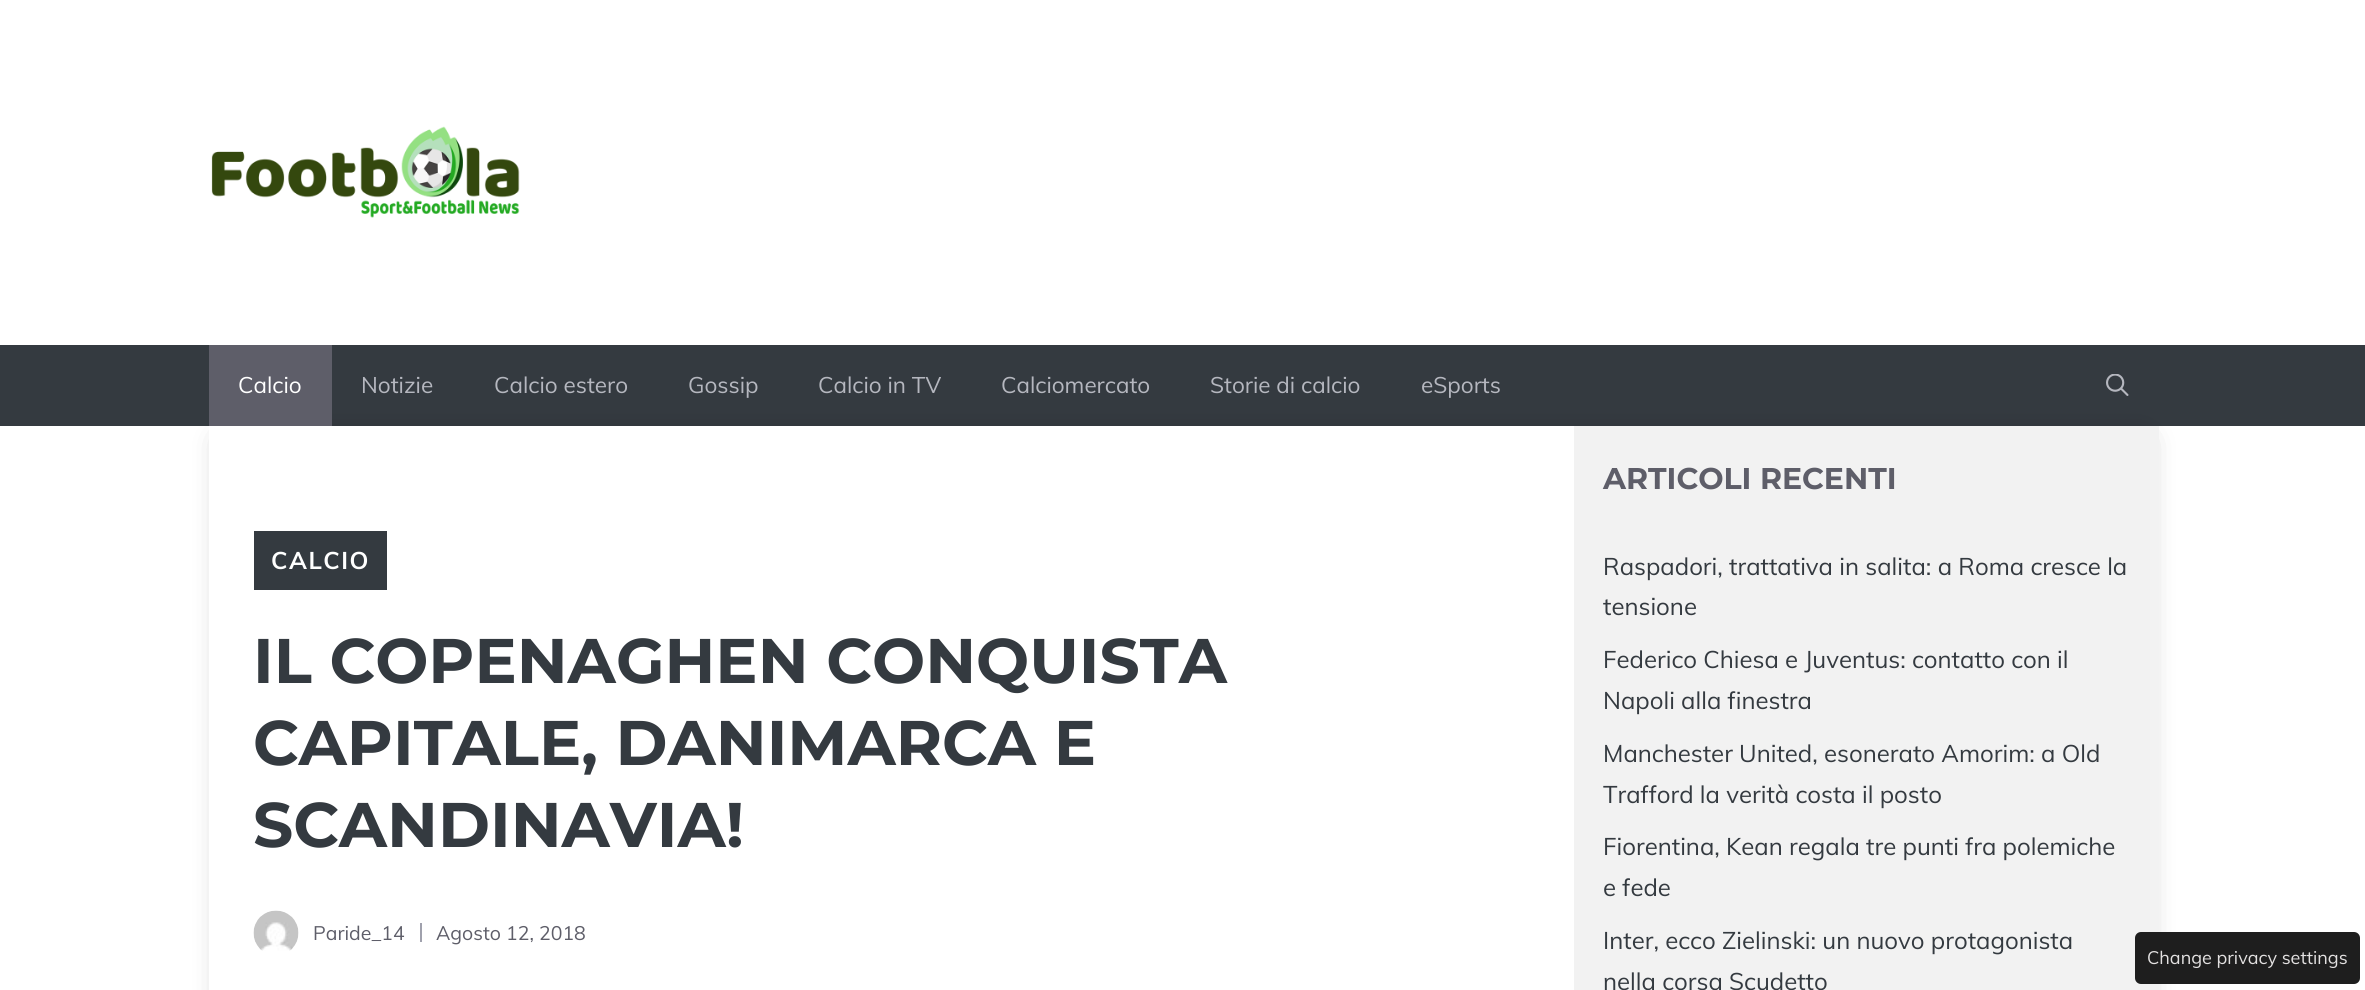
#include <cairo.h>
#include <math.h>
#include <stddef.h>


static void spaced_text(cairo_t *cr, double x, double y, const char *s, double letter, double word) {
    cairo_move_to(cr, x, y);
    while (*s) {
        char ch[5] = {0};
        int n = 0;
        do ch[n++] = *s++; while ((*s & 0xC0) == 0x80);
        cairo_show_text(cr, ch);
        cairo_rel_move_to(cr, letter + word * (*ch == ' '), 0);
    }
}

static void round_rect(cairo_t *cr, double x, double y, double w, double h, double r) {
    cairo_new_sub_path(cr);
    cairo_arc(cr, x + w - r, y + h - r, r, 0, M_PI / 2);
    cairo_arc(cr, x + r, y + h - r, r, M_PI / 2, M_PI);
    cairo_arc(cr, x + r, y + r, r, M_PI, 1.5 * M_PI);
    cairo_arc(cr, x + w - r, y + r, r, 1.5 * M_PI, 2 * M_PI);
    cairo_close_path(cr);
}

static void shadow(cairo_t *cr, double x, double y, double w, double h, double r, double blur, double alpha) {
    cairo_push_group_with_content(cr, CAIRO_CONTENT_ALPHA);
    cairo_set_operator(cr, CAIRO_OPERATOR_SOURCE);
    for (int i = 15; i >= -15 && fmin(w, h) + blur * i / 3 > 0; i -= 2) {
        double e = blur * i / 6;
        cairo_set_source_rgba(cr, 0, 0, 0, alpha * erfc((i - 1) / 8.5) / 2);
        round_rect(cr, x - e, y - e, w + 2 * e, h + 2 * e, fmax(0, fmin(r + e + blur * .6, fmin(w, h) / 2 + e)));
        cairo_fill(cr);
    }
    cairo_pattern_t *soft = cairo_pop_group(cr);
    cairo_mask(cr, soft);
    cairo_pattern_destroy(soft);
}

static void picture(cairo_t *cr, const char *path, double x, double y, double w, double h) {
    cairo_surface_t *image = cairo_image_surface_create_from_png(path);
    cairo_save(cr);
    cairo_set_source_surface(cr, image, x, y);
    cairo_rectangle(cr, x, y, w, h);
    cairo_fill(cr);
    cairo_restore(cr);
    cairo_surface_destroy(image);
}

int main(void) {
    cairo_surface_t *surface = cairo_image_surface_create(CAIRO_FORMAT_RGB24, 2365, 990);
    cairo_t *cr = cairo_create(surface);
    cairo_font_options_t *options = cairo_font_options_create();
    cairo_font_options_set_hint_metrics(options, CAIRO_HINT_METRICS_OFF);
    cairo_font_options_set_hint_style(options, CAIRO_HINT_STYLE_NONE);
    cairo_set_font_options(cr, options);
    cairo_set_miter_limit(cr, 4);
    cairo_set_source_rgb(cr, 1, 1, 1);
    cairo_paint(cr);
    picture(cr, "img1.png", 211, 126, 309, 92);
    cairo_set_source_rgb(cr, 0.204, 0.227, 0.251);
    cairo_rectangle(cr, 0, 345, 2365, 81);
    cairo_fill(cr);
    cairo_save(cr);
    cairo_set_fill_rule(cr, CAIRO_FILL_RULE_EVEN_ODD);
    cairo_new_path(cr);
    cairo_move_to(cr, 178, 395);
    cairo_line_to(cr, 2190, 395);
    cairo_line_to(cr, 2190, 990);
    cairo_line_to(cr, 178, 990);
    cairo_close_path(cr);
    cairo_move_to(cr, 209, 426);
    cairo_line_to(cr, 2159, 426);
    cairo_line_to(cr, 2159, 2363);
    cairo_line_to(cr, 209, 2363);
    cairo_close_path(cr);
    cairo_clip(cr);
    cairo_set_source_rgb(cr, 0, 0, 0);
    shadow(cr, 224, 441, 1920, 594, 0, 15, 0.3);
    cairo_restore(cr);
    cairo_set_source_rgb(cr, 0.369, 0.369, 0.412);
    cairo_rectangle(cr, 209, 345, 123, 81);
    cairo_fill(cr);
    cairo_select_font_face(cr, "Muli", CAIRO_FONT_SLANT_NORMAL, CAIRO_FONT_WEIGHT_NORMAL);
    cairo_set_font_size(cr, 22.5);
    cairo_set_source_rgb(cr, 1, 1, 1);
    cairo_move_to(cr, 238, 393);
    cairo_show_text(cr, "Calcio");
    cairo_set_source_rgb(cr, 0.71, 0.718, 0.749);
    cairo_move_to(cr, 361, 393);
    cairo_show_text(cr, "Notizie");
    cairo_move_to(cr, 494, 393);
    cairo_show_text(cr, "Calcio estero");
    cairo_move_to(cr, 688, 393);
    cairo_show_text(cr, "Gossip");
    cairo_move_to(cr, 818, 393);
    cairo_show_text(cr, "Calcio in TV");
    cairo_move_to(cr, 1001, 393);
    cairo_show_text(cr, "Calciomercato");
    cairo_move_to(cr, 1210, 393);
    cairo_show_text(cr, "Storie di calcio");
    cairo_move_to(cr, 1421, 393);
    cairo_show_text(cr, "eSports");
    picture(cr, "img2.png", 2106, 374, 23, 22);
    cairo_set_source_rgb(cr, 0.204, 0.227, 0.251);
    cairo_rectangle(cr, 254, 531, 133, 59);
    cairo_fill(cr);
    cairo_select_font_face(cr, "Muli", CAIRO_FONT_SLANT_NORMAL, CAIRO_FONT_WEIGHT_BOLD);
    cairo_set_font_size(cr, 24);
    cairo_set_source_rgb(cr, 1, 1, 1);
    spaced_text(cr, 271, 569, "CALCIO", 1.5, 0);
    cairo_select_font_face(cr, "Montserrat", CAIRO_FONT_SLANT_NORMAL, CAIRO_FONT_WEIGHT_BOLD);
    cairo_set_font_size(cr, 63);
    cairo_set_source_rgb(cr, 0.204, 0.227, 0.251);
    cairo_move_to(cr, 253, 683);
    cairo_show_text(cr, "IL COPENAGHEN CONQUISTA");
    cairo_move_to(cr, 253, 765);
    cairo_show_text(cr, "CAPITALE, DANIMARCA E");
    cairo_move_to(cr, 253, 847);
    cairo_show_text(cr, "SCANDINAVIA!");
    picture(cr, "img3.png", 253, 910, 46, 41);
    cairo_select_font_face(cr, "Muli", CAIRO_FONT_SLANT_NORMAL, CAIRO_FONT_WEIGHT_NORMAL);
    cairo_set_font_size(cr, 19.5);
    cairo_set_source_rgb(cr, 0.369, 0.369, 0.412);
    cairo_move_to(cr, 313, 940);
    cairo_show_text(cr, "Paride_14");
    cairo_set_source_rgb(cr, 0.627, 0.631, 0.678);
    cairo_rectangle(cr, 420, 923, 2, 19);
    cairo_fill(cr);
    cairo_set_source_rgb(cr, 0.369, 0.369, 0.412);
    cairo_move_to(cr, 436, 940);
    cairo_show_text(cr, "Agosto 12, 2018");
    cairo_set_source_rgb(cr, 0.949, 0.949, 0.949);
    cairo_rectangle(cr, 1574, 426, 585, 564);
    cairo_fill(cr);
    cairo_select_font_face(cr, "Montserrat", CAIRO_FONT_SLANT_NORMAL, CAIRO_FONT_WEIGHT_BOLD);
    cairo_set_font_size(cr, 30);
    cairo_set_source_rgb(cr, 0.369, 0.369, 0.412);
    cairo_move_to(cr, 1603, 489);
    cairo_show_text(cr, "ARTICOLI RECENTI");
    cairo_select_font_face(cr, "Muli", CAIRO_FONT_SLANT_NORMAL, CAIRO_FONT_WEIGHT_NORMAL);
    cairo_set_font_size(cr, 24);
    cairo_set_source_rgb(cr, 0.204, 0.227, 0.251);
    cairo_move_to(cr, 1603, 575);
    cairo_show_text(cr, "Raspadori, trattativa in salita: a Roma cresce la");
    cairo_move_to(cr, 1603, 615);
    cairo_show_text(cr, "tensione");
    cairo_move_to(cr, 1603, 668);
    cairo_show_text(cr, "Federico Chiesa e Juventus: contatto con il");
    cairo_move_to(cr, 1603, 709);
    cairo_show_text(cr, "Napoli alla finestra");
    cairo_move_to(cr, 1603, 762);
    cairo_show_text(cr, "Manchester United, esonerato Amorim: a Old");
    cairo_move_to(cr, 1603, 803);
    cairo_show_text(cr, "Trafford la verità costa il posto");
    cairo_move_to(cr, 1603, 855);
    cairo_show_text(cr, "Fiorentina, Kean regala tre punti fra polemiche");
    cairo_move_to(cr, 1603, 896);
    cairo_show_text(cr, "e fede");
    cairo_move_to(cr, 1603, 949);
    cairo_show_text(cr, "Inter, ecco Zielinski: un nuovo protagonista");
    cairo_move_to(cr, 1603, 990);
    cairo_show_text(cr, "nella corsa Scudetto");
    cairo_set_source_rgb(cr, 0.118, 0.118, 0.118);
    round_rect(cr, 2135, 932, 225, 52, 6);
    cairo_fill(cr);
    cairo_set_font_size(cr, 18);
    cairo_set_source_rgb(cr, 0.89, 0.882, 0.882);
    cairo_move_to(cr, 2147, 964);
    cairo_show_text(cr, "Change privacy settings");
    cairo_surface_write_to_png(surface, "page.png");
    cairo_font_options_destroy(options);
    cairo_destroy(cr);
    cairo_surface_destroy(surface);
    return 0;
}
